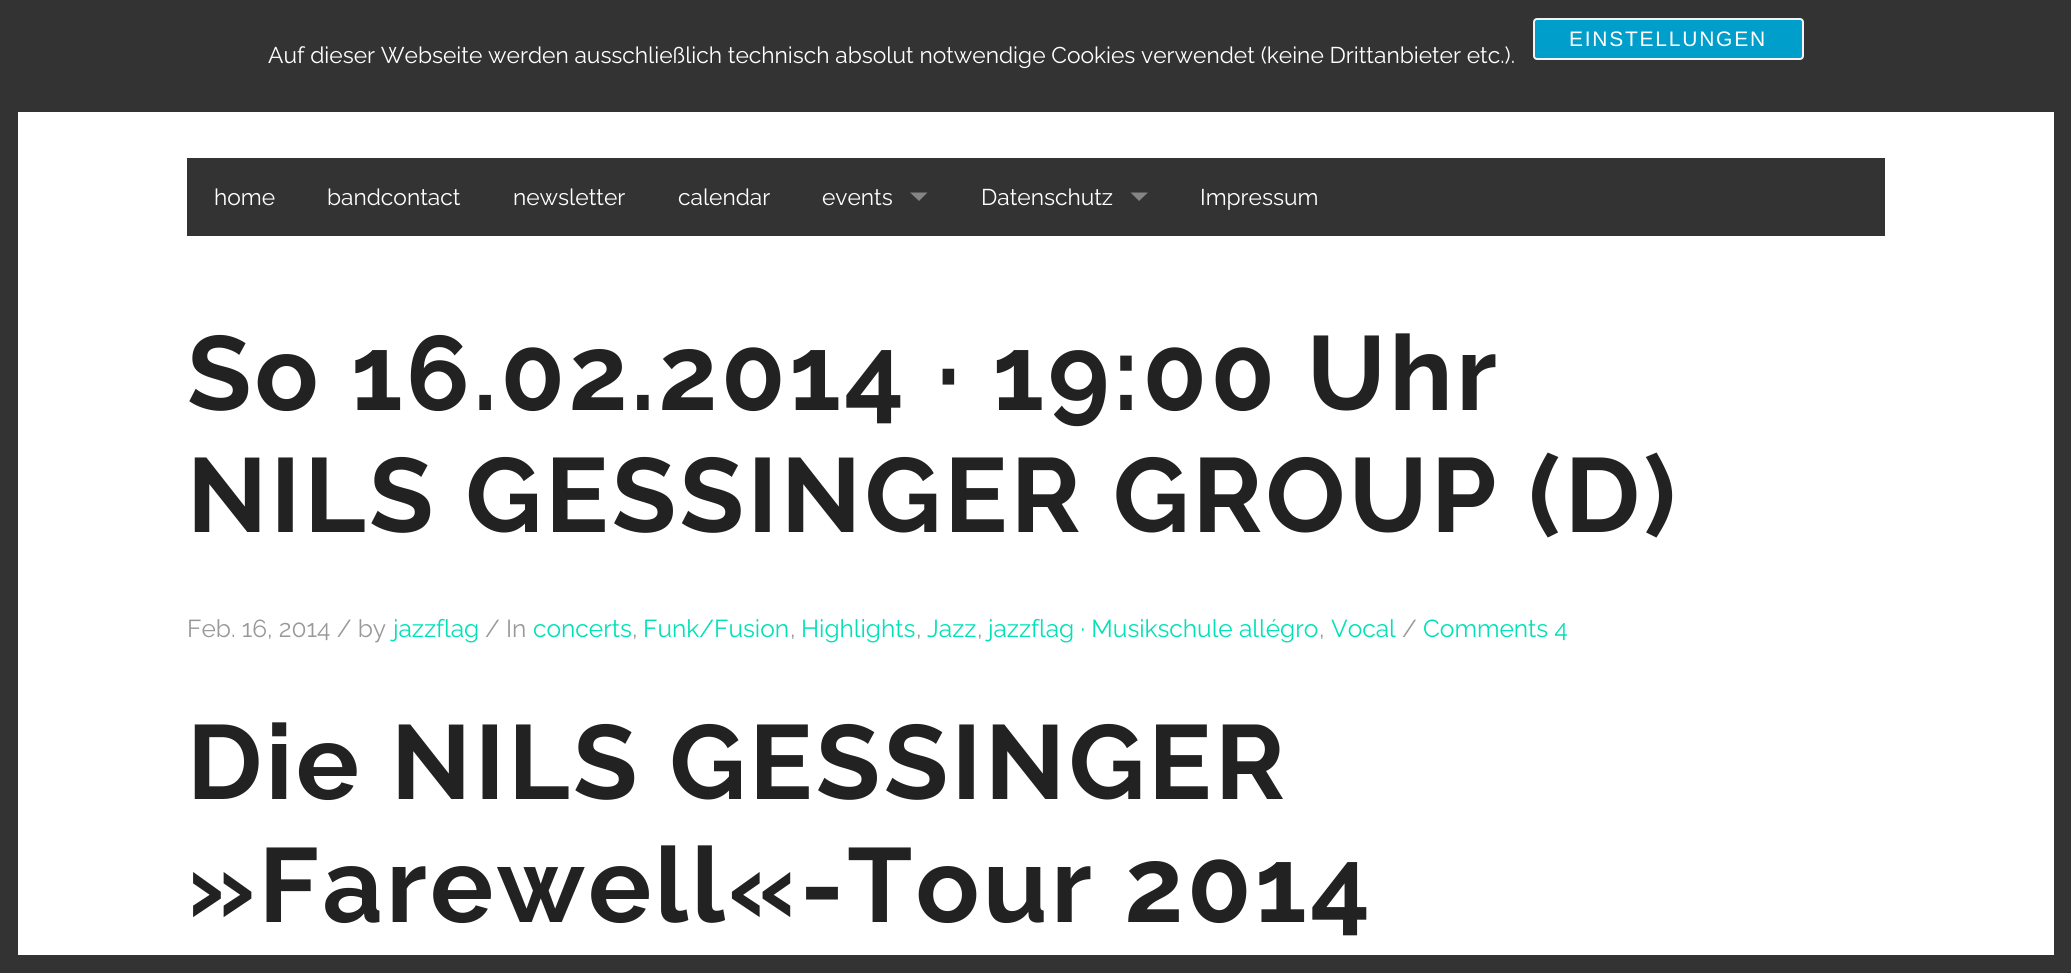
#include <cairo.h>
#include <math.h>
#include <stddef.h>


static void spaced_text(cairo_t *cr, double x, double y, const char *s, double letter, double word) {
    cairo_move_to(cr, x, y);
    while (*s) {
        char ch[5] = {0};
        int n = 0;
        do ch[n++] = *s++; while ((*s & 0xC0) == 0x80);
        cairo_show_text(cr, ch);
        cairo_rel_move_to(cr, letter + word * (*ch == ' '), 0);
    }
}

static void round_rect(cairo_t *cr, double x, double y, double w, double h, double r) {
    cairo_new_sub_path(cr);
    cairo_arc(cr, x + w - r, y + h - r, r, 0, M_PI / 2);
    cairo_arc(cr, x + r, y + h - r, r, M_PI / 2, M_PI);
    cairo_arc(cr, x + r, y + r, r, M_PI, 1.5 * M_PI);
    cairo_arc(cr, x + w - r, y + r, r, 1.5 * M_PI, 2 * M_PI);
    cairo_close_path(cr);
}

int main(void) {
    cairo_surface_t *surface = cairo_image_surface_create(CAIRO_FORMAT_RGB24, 2071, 973);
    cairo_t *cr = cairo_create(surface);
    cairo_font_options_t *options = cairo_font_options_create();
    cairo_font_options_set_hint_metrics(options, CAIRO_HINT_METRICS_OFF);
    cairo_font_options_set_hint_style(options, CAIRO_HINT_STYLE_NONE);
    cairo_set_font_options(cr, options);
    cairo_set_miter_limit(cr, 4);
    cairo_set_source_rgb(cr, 1, 1, 1);
    cairo_paint(cr);
    cairo_rectangle(cr, 9, 9, 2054, 955);
    cairo_set_source_rgb(cr, 0.2, 0.2, 0.2);
    cairo_set_line_width(cr, 18);
    cairo_stroke(cr);
    cairo_rectangle(cr, 18, 18, 2036, 94);
    cairo_fill(cr);
    cairo_set_source_rgb(cr, 0, 0.62, 0.796);
    round_rect(cr, 1534, 19, 269, 40, 3);
    cairo_fill_preserve(cr);
    cairo_set_source_rgb(cr, 0.953, 0.953, 0.953);
    cairo_set_line_width(cr, 2);
    cairo_stroke(cr);
    cairo_select_font_face(cr, "Liberation Sans", CAIRO_FONT_SLANT_NORMAL, CAIRO_FONT_WEIGHT_NORMAL);
    cairo_set_font_size(cr, 21);
    cairo_set_source_rgb(cr, 1, 1, 1);
    spaced_text(cr, 1569, 46, "EINSTELLUNGEN", 1.75, 0);
    cairo_select_font_face(cr, "Raleway", CAIRO_FONT_SLANT_NORMAL, CAIRO_FONT_WEIGHT_NORMAL);
    cairo_set_font_size(cr, 22.75);
    cairo_move_to(cr, 268, 63);
    cairo_show_text(cr, "Auf dieser Webseite werden ausschließlich technisch absolut notwendige Cookies verwendet (keine Drittanbieter etc.).");
    cairo_set_source_rgb(cr, 0.2, 0.2, 0.2);
    cairo_rectangle(cr, 187, 158, 1698, 78);
    cairo_fill(cr);
    cairo_set_source_rgb(cr, 1, 1, 1);
    cairo_move_to(cr, 214, 205);
    cairo_show_text(cr, "home");
    cairo_move_to(cr, 327, 205);
    cairo_show_text(cr, "bandcontact");
    cairo_move_to(cr, 513, 205);
    cairo_show_text(cr, "newsletter");
    cairo_move_to(cr, 678, 205);
    cairo_show_text(cr, "calendar");
    cairo_move_to(cr, 822, 205);
    cairo_show_text(cr, "events");
    cairo_set_source_rgb(cr, 0.522, 0.522, 0.522);
    cairo_new_path(cr);
    cairo_move_to(cr, 910, 192.5);
    cairo_line_to(cr, 927.5, 192.5);
    cairo_line_to(cr, 919, 201);
    cairo_close_path(cr);
    cairo_fill(cr);
    cairo_set_source_rgb(cr, 1, 1, 1);
    cairo_move_to(cr, 981, 205);
    cairo_show_text(cr, "Datenschutz");
    cairo_set_source_rgb(cr, 0.522, 0.522, 0.522);
    cairo_new_path(cr);
    cairo_move_to(cr, 1130.5, 192.5);
    cairo_line_to(cr, 1148, 192.5);
    cairo_line_to(cr, 1139, 201);
    cairo_close_path(cr);
    cairo_fill(cr);
    cairo_set_source_rgb(cr, 1, 1, 1);
    cairo_move_to(cr, 1200, 205);
    cairo_show_text(cr, "Impressum");
    cairo_select_font_face(cr, "Raleway", CAIRO_FONT_SLANT_NORMAL, CAIRO_FONT_WEIGHT_BOLD);
    cairo_set_font_size(cr, 105);
    cairo_set_source_rgb(cr, 0.133, 0.133, 0.133);
    spaced_text(cr, 187, 410, "So 16.02.2014 · 19:00 Uhr", 3.5, 0);
    spaced_text(cr, 187, 532, "NILS GESSINGER GROUP (D)", 3.5, 0);
    cairo_select_font_face(cr, "Raleway", CAIRO_FONT_SLANT_NORMAL, CAIRO_FONT_WEIGHT_NORMAL);
    cairo_set_font_size(cr, 24.5);
    cairo_set_source_rgb(cr, 0.6, 0.6, 0.6);
    cairo_move_to(cr, 187, 637);
    cairo_show_text(cr, "Feb. 16, 2014 / by");
    cairo_set_source_rgb(cr, 0, 0.882, 0.714);
    cairo_move_to(cr, 393, 637);
    cairo_show_text(cr, "jazzflag");
    cairo_set_source_rgb(cr, 0.6, 0.6, 0.6);
    cairo_move_to(cr, 485, 637);
    cairo_show_text(cr, "/ In");
    cairo_set_source_rgb(cr, 0, 0.882, 0.714);
    cairo_move_to(cr, 533, 637);
    cairo_show_text(cr, "concerts");
    cairo_set_source_rgb(cr, 0.6, 0.6, 0.6);
    cairo_move_to(cr, 632, 637);
    cairo_show_text(cr, ",");
    cairo_set_source_rgb(cr, 0, 0.882, 0.714);
    cairo_move_to(cr, 643, 637);
    cairo_show_text(cr, "Funk/Fusion");
    cairo_set_source_rgb(cr, 0.6, 0.6, 0.6);
    cairo_move_to(cr, 790, 637);
    cairo_show_text(cr, ",");
    cairo_set_source_rgb(cr, 0, 0.882, 0.714);
    cairo_move_to(cr, 801, 637);
    cairo_show_text(cr, "Highlights");
    cairo_set_source_rgb(cr, 0.6, 0.6, 0.6);
    cairo_move_to(cr, 916, 637);
    cairo_show_text(cr, ",");
    cairo_set_source_rgb(cr, 0, 0.882, 0.714);
    cairo_move_to(cr, 927, 637);
    cairo_show_text(cr, "Jazz");
    cairo_set_source_rgb(cr, 0.6, 0.6, 0.6);
    cairo_move_to(cr, 977, 637);
    cairo_show_text(cr, ",");
    cairo_set_source_rgb(cr, 0, 0.882, 0.714);
    cairo_move_to(cr, 988, 637);
    cairo_show_text(cr, "jazzflag · Musikschule allégro");
    cairo_set_source_rgb(cr, 0.6, 0.6, 0.6);
    cairo_move_to(cr, 1319, 637);
    cairo_show_text(cr, ",");
    cairo_set_source_rgb(cr, 0, 0.882, 0.714);
    cairo_move_to(cr, 1331, 637);
    cairo_show_text(cr, "Vocal");
    cairo_set_source_rgb(cr, 0.6, 0.6, 0.6);
    cairo_move_to(cr, 1402, 637);
    cairo_show_text(cr, "/");
    cairo_set_source_rgb(cr, 0, 0.882, 0.714);
    cairo_move_to(cr, 1423, 637);
    cairo_show_text(cr, "Comments 4");
    cairo_select_font_face(cr, "Raleway", CAIRO_FONT_SLANT_NORMAL, CAIRO_FONT_WEIGHT_BOLD);
    cairo_set_font_size(cr, 105);
    cairo_set_source_rgb(cr, 0.133, 0.133, 0.133);
    spaced_text(cr, 187, 799, "Die NILS GESSINGER", 3.5, 0);
    spaced_text(cr, 187, 922, "»Farewell«-Tour 2014", 3.5, 0);
    cairo_surface_write_to_png(surface, "page.png");
    cairo_font_options_destroy(options);
    cairo_destroy(cr);
    cairo_surface_destroy(surface);
    return 0;
}
